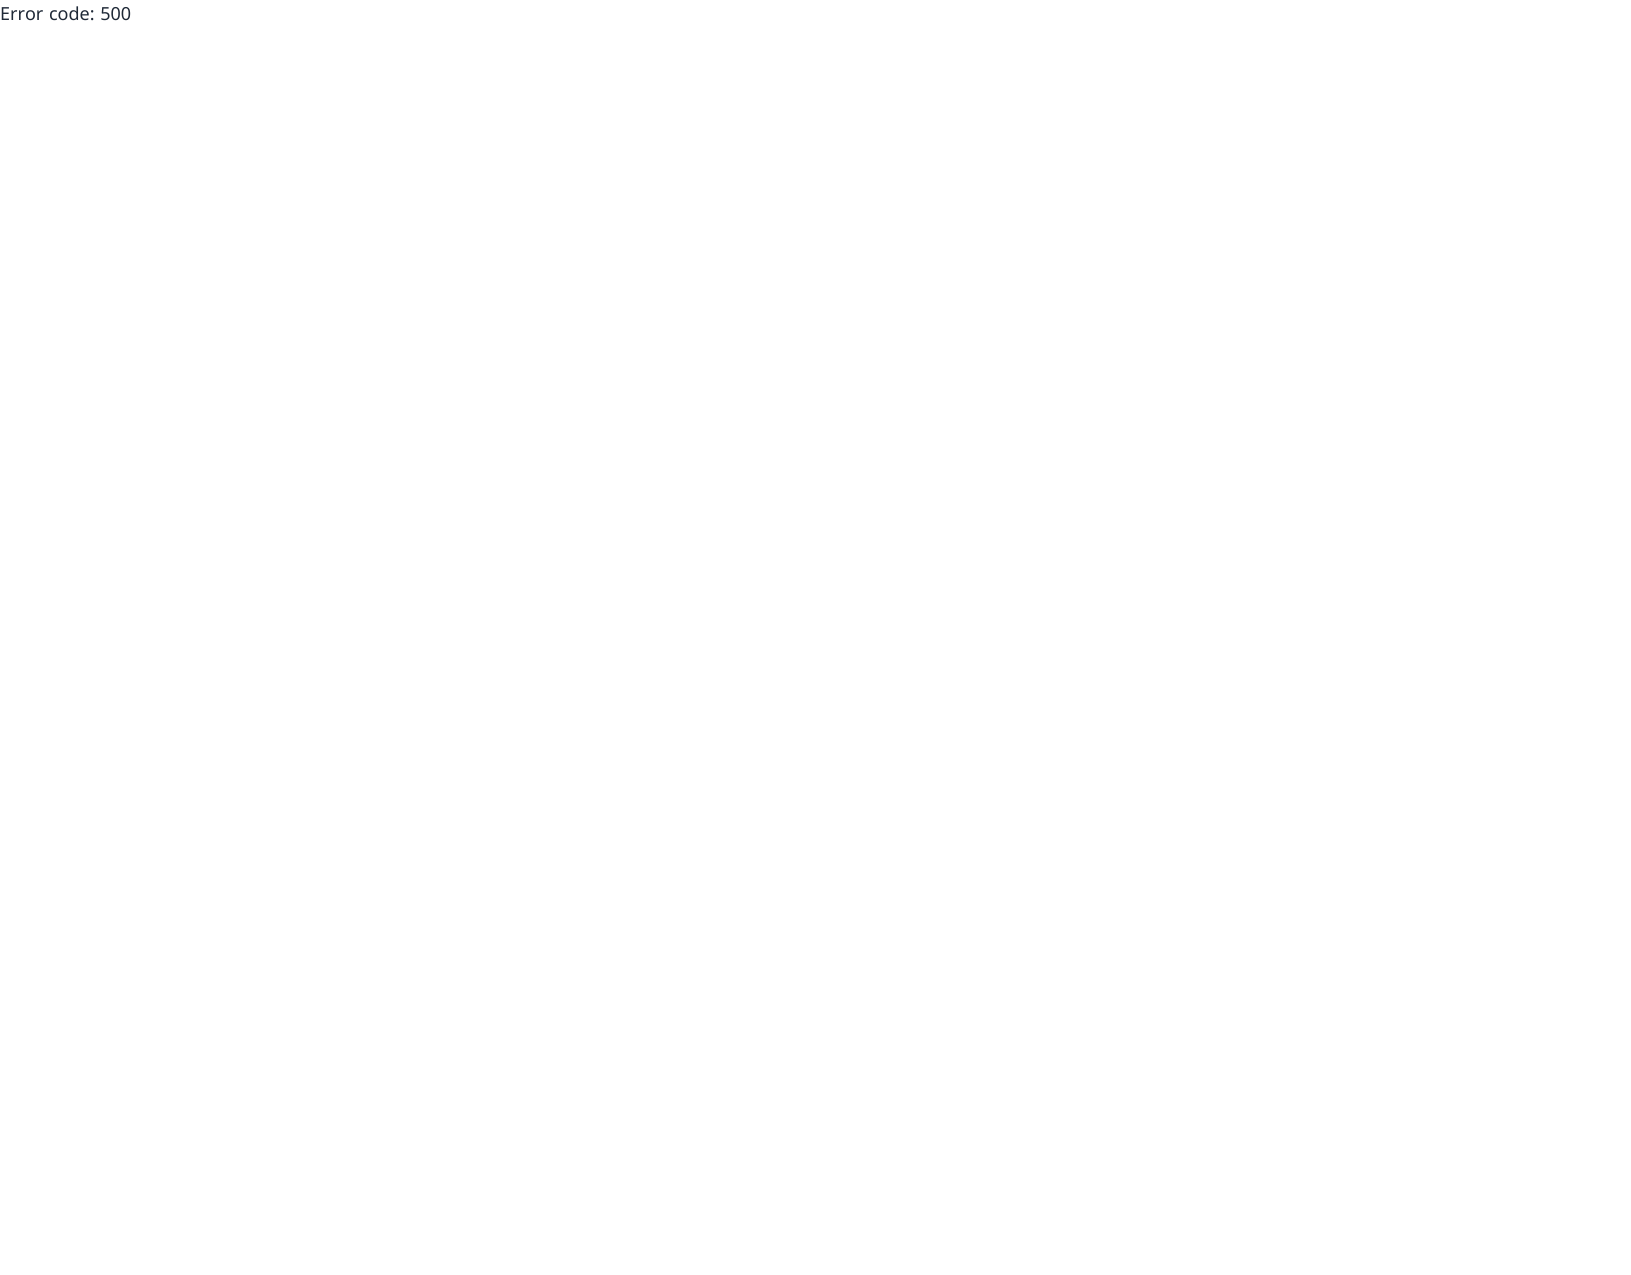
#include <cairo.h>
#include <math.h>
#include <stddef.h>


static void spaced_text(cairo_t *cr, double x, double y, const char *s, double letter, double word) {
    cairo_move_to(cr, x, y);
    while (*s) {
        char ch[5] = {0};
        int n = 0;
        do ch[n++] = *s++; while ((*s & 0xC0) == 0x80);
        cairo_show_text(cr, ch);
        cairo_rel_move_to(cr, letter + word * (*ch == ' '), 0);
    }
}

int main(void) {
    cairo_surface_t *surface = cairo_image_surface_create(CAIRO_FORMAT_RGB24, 1631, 1275);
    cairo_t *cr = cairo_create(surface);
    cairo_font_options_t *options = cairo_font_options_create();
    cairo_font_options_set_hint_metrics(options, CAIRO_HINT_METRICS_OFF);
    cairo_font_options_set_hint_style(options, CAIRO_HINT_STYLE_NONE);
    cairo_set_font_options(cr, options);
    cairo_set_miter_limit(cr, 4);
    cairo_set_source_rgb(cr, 1, 1, 1);
    cairo_paint(cr);
    cairo_select_font_face(cr, "Noto Sans", CAIRO_FONT_SLANT_NORMAL, CAIRO_FONT_WEIGHT_NORMAL);
    cairo_set_font_size(cr, 18);
    cairo_set_source_rgb(cr, 0.122, 0.161, 0.216);
    spaced_text(cr, 0, 20, "Error code: 500", 0, 1);
    cairo_surface_write_to_png(surface, "page.png");
    cairo_font_options_destroy(options);
    cairo_destroy(cr);
    cairo_surface_destroy(surface);
    return 0;
}
